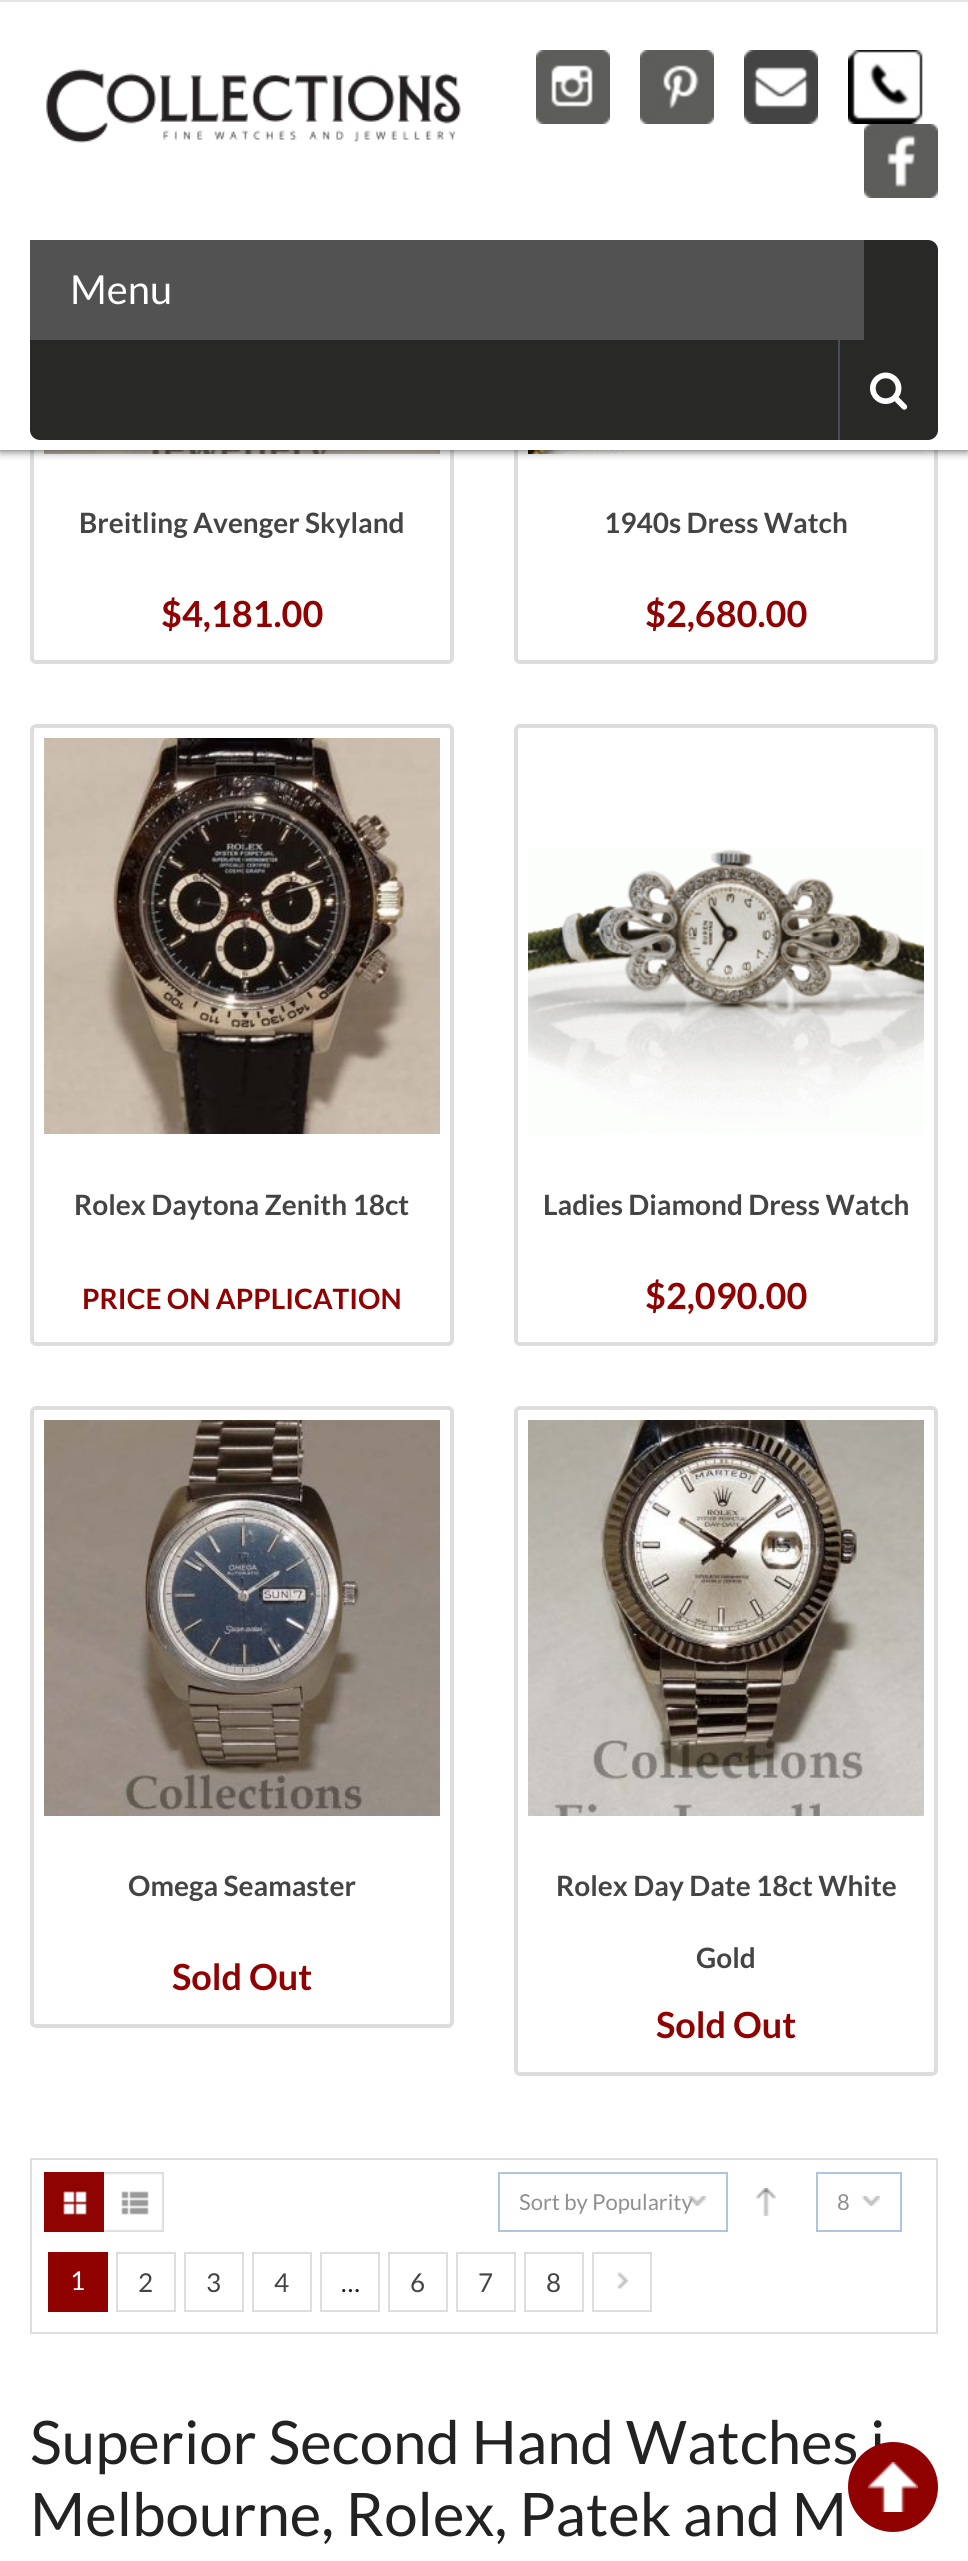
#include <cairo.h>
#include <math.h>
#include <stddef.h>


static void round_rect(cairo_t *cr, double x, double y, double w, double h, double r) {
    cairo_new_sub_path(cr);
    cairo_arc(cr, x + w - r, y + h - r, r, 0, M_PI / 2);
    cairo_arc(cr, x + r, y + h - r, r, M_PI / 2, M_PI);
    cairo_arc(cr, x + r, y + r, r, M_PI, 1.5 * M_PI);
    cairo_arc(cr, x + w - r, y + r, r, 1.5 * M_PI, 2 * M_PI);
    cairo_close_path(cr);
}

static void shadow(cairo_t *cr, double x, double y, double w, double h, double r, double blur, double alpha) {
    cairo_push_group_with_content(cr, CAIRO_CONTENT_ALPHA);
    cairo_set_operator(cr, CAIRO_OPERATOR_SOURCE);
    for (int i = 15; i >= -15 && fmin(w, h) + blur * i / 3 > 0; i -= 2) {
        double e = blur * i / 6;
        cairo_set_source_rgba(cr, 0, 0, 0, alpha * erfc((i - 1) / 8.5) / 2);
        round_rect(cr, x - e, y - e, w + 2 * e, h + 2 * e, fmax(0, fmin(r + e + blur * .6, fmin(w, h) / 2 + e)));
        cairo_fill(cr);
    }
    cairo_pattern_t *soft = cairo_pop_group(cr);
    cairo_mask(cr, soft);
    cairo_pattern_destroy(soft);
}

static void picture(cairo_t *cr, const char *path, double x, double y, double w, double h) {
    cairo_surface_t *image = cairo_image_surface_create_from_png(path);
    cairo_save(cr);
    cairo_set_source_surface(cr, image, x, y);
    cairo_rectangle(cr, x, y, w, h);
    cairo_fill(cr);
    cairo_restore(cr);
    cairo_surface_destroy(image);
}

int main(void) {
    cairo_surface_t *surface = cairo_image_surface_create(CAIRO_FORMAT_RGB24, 968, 2561);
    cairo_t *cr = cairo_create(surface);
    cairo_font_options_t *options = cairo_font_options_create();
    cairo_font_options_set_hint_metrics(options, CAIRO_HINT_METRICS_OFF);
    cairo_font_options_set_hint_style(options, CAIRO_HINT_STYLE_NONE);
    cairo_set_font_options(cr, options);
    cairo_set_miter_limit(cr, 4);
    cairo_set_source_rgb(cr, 1, 1, 1);
    cairo_paint(cr);
    round_rect(cr, 32, 46, 420, 616, 4);
    cairo_set_source_rgb(cr, 0.867, 0.867, 0.867);
    cairo_set_line_width(cr, 4);
    cairo_stroke(cr);
    picture(cr, "img8.png", 44, 450, 396, 4);
    round_rect(cr, 516, 46, 420, 616, 4);
    cairo_stroke(cr);
    picture(cr, "img9.png", 528, 450, 396, 4);
    cairo_set_source_rgb(cr, 0, 0, 0);
    shadow(cr, 0, 0, 968, 450, 0, 5, 0.75);
    cairo_set_source_rgb(cr, 1, 1, 1);
    cairo_rectangle(cr, 0, 2, 968, 448);
    cairo_fill(cr);
    cairo_set_source_rgb(cr, 0.89, 0.89, 0.89);
    cairo_rectangle(cr, 0, 0, 968, 2);
    cairo_fill(cr);
    picture(cr, "img1.png", 46, 69, 415, 74);
    picture(cr, "img2.png", 536, 50, 74, 74);
    picture(cr, "img3.png", 640, 50, 74, 74);
    picture(cr, "img4.png", 744, 50, 74, 74);
    picture(cr, "img5.png", 848, 50, 75, 74);
    picture(cr, "img6.png", 864, 124, 74, 74);
    cairo_set_source_rgb(cr, 0.157, 0.157, 0.149);
    round_rect(cr, 30, 240, 908, 200, 10);
    cairo_fill(cr);
    cairo_set_source_rgb(cr, 0.322, 0.322, 0.322);
    cairo_rectangle(cr, 30, 240, 834, 100);
    cairo_fill(cr);
    cairo_select_font_face(cr, "Lato", CAIRO_FONT_SLANT_NORMAL, CAIRO_FONT_WEIGHT_NORMAL);
    cairo_set_font_size(cr, 40);
    cairo_set_source_rgb(cr, 1, 1, 1);
    cairo_move_to(cr, 70, 304);
    cairo_show_text(cr, "Menu");
    cairo_set_source_rgb(cr, 0.278, 0.306, 0.345);
    cairo_rectangle(cr, 838, 340, 2, 100);
    cairo_fill(cr);
    picture(cr, "img7.png", 870, 372, 38, 38);
    cairo_select_font_face(cr, "Lato", CAIRO_FONT_SLANT_NORMAL, CAIRO_FONT_WEIGHT_BOLD);
    cairo_set_font_size(cr, 28);
    cairo_set_source_rgb(cr, 0.267, 0.267, 0.267);
    cairo_move_to(cr, 79, 533);
    cairo_show_text(cr, "Breitling Avenger Skyland");
    cairo_set_font_size(cr, 36);
    cairo_set_source_rgb(cr, 0.565, 0.008, 0.008);
    cairo_move_to(cr, 161, 627);
    cairo_show_text(cr, "$4,181.00");
    cairo_set_font_size(cr, 28);
    cairo_set_source_rgb(cr, 0.267, 0.267, 0.267);
    cairo_move_to(cr, 604, 533);
    cairo_show_text(cr, "1940s Dress Watch");
    cairo_set_font_size(cr, 36);
    cairo_set_source_rgb(cr, 0.565, 0.008, 0.008);
    cairo_move_to(cr, 645, 627);
    cairo_show_text(cr, "$2,680.00");
    round_rect(cr, 32, 726, 420, 618, 4);
    cairo_set_source_rgb(cr, 0.867, 0.867, 0.867);
    cairo_stroke(cr);
    picture(cr, "img10.png", 44, 738, 396, 396);
    cairo_set_font_size(cr, 28);
    cairo_set_source_rgb(cr, 0.267, 0.267, 0.267);
    cairo_move_to(cr, 74, 1215);
    cairo_show_text(cr, "Rolex Daytona Zenith 18ct");
    cairo_set_source_rgb(cr, 0.565, 0.008, 0.008);
    cairo_move_to(cr, 82, 1309);
    cairo_show_text(cr, "PRICE ON APPLICATION");
    round_rect(cr, 516, 726, 420, 618, 4);
    cairo_set_source_rgb(cr, 0.867, 0.867, 0.867);
    cairo_stroke(cr);
    picture(cr, "img11.png", 528, 848, 396, 286);
    cairo_set_source_rgb(cr, 0.267, 0.267, 0.267);
    cairo_move_to(cr, 543, 1215);
    cairo_show_text(cr, "Ladies Diamond Dress Watch");
    cairo_set_font_size(cr, 36);
    cairo_set_source_rgb(cr, 0.565, 0.008, 0.008);
    cairo_move_to(cr, 645, 1309);
    cairo_show_text(cr, "$2,090.00");
    round_rect(cr, 32, 1408, 420, 618, 4);
    cairo_set_source_rgb(cr, 0.867, 0.867, 0.867);
    cairo_stroke(cr);
    picture(cr, "img12.png", 44, 1420, 396, 396);
    cairo_set_font_size(cr, 28);
    cairo_set_source_rgb(cr, 0.267, 0.267, 0.267);
    cairo_move_to(cr, 128, 1896);
    cairo_show_text(cr, "Omega Seamaster");
    cairo_set_font_size(cr, 36);
    cairo_set_source_rgb(cr, 0.565, 0.008, 0.008);
    cairo_move_to(cr, 172, 1990);
    cairo_show_text(cr, "Sold Out");
    round_rect(cr, 516, 1408, 420, 666, 4);
    cairo_set_source_rgb(cr, 0.867, 0.867, 0.867);
    cairo_stroke(cr);
    picture(cr, "img13.png", 528, 1420, 396, 396);
    cairo_set_font_size(cr, 28);
    cairo_set_source_rgb(cr, 0.267, 0.267, 0.267);
    cairo_move_to(cr, 556, 1896);
    cairo_show_text(cr, "Rolex Day Date 18ct White");
    cairo_move_to(cr, 696, 1968);
    cairo_show_text(cr, "Gold");
    cairo_set_font_size(cr, 36);
    cairo_set_source_rgb(cr, 0.565, 0.008, 0.008);
    cairo_move_to(cr, 656, 2038);
    cairo_show_text(cr, "Sold Out");
    cairo_rectangle(cr, 31, 2159, 906, 174);
    cairo_set_source_rgb(cr, 0.867, 0.867, 0.867);
    cairo_set_line_width(cr, 2);
    cairo_stroke(cr);
    picture(cr, "img14.png", 44, 2172, 60, 60);
    picture(cr, "img15.png", 104, 2172, 60, 60);
    cairo_rectangle(cr, 499, 2173, 228, 58);
    cairo_set_source_rgb(cr, 0.69, 0.769, 0.871);
    cairo_stroke(cr);
    picture(cr, "img16.png", 688, 2196, 18, 10);
    cairo_select_font_face(cr, "Lato", CAIRO_FONT_SLANT_NORMAL, CAIRO_FONT_WEIGHT_NORMAL);
    cairo_set_font_size(cr, 22);
    cairo_set_source_rgb(cr, 0.565, 0.565, 0.565);
    cairo_move_to(cr, 519, 2210);
    cairo_show_text(cr, "Sort by Popularity");
    picture(cr, "img17.png", 756, 2188, 20, 28);
    cairo_rectangle(cr, 817, 2173, 84, 58);
    cairo_set_source_rgb(cr, 0.69, 0.769, 0.871);
    cairo_stroke(cr);
    picture(cr, "img16.png", 862, 2196, 18, 10);
    cairo_set_source_rgb(cr, 0.565, 0.565, 0.565);
    cairo_move_to(cr, 837, 2210);
    cairo_show_text(cr, "8");
    cairo_set_source_rgb(cr, 0.565, 0.008, 0.008);
    cairo_rectangle(cr, 48, 2252, 60, 60);
    cairo_fill(cr);
    cairo_set_font_size(cr, 26);
    cairo_set_source_rgb(cr, 1, 1, 1);
    cairo_move_to(cr, 70, 2290);
    cairo_show_text(cr, "1");
    cairo_rectangle(cr, 117, 2253, 58, 58);
    cairo_set_source_rgb(cr, 0.867, 0.867, 0.867);
    cairo_stroke(cr);
    cairo_set_source_rgb(cr, 0.267, 0.267, 0.267);
    cairo_move_to(cr, 138, 2292);
    cairo_show_text(cr, "2");
    cairo_rectangle(cr, 185, 2253, 58, 58);
    cairo_set_source_rgb(cr, 0.867, 0.867, 0.867);
    cairo_stroke(cr);
    cairo_set_source_rgb(cr, 0.267, 0.267, 0.267);
    cairo_move_to(cr, 206, 2292);
    cairo_show_text(cr, "3");
    cairo_rectangle(cr, 253, 2253, 58, 58);
    cairo_set_source_rgb(cr, 0.867, 0.867, 0.867);
    cairo_stroke(cr);
    cairo_set_source_rgb(cr, 0.267, 0.267, 0.267);
    cairo_move_to(cr, 274, 2292);
    cairo_show_text(cr, "4");
    cairo_rectangle(cr, 321, 2253, 58, 58);
    cairo_set_source_rgb(cr, 0.867, 0.867, 0.867);
    cairo_stroke(cr);
    cairo_set_source_rgb(cr, 0.133, 0.133, 0.133);
    cairo_move_to(cr, 341, 2292);
    cairo_show_text(cr, "…");
    cairo_rectangle(cr, 389, 2253, 58, 58);
    cairo_set_source_rgb(cr, 0.867, 0.867, 0.867);
    cairo_stroke(cr);
    cairo_set_source_rgb(cr, 0.267, 0.267, 0.267);
    cairo_move_to(cr, 410, 2292);
    cairo_show_text(cr, "6");
    cairo_rectangle(cr, 457, 2253, 58, 58);
    cairo_set_source_rgb(cr, 0.867, 0.867, 0.867);
    cairo_stroke(cr);
    cairo_set_source_rgb(cr, 0.267, 0.267, 0.267);
    cairo_move_to(cr, 478, 2292);
    cairo_show_text(cr, "7");
    cairo_rectangle(cr, 525, 2253, 58, 58);
    cairo_set_source_rgb(cr, 0.867, 0.867, 0.867);
    cairo_stroke(cr);
    cairo_set_source_rgb(cr, 0.267, 0.267, 0.267);
    cairo_move_to(cr, 546, 2292);
    cairo_show_text(cr, "8");
    picture(cr, "img18.png", 617, 2272, 11, 18);
    cairo_rectangle(cr, 593, 2253, 58, 58);
    cairo_set_source_rgb(cr, 0.867, 0.867, 0.867);
    cairo_stroke(cr);
    cairo_set_font_size(cr, 60);
    cairo_set_source_rgb(cr, 0.133, 0.133, 0.133);
    cairo_move_to(cr, 30, 2464);
    cairo_show_text(cr, "Superior Second Hand Watches i");
    cairo_move_to(cr, 30, 2536);
    cairo_show_text(cr, "Melbourne, Rolex, Patek and M");
    cairo_set_source_rgb(cr, 0.565, 0.008, 0.008);
    cairo_new_path(cr);
    cairo_arc(cr, 893, 2487, 45, 0, 2 * M_PI);
    cairo_fill(cr);
    picture(cr, "img19.png", 868, 2462, 50, 50);
    cairo_surface_write_to_png(surface, "page.png");
    cairo_font_options_destroy(options);
    cairo_destroy(cr);
    cairo_surface_destroy(surface);
    return 0;
}
